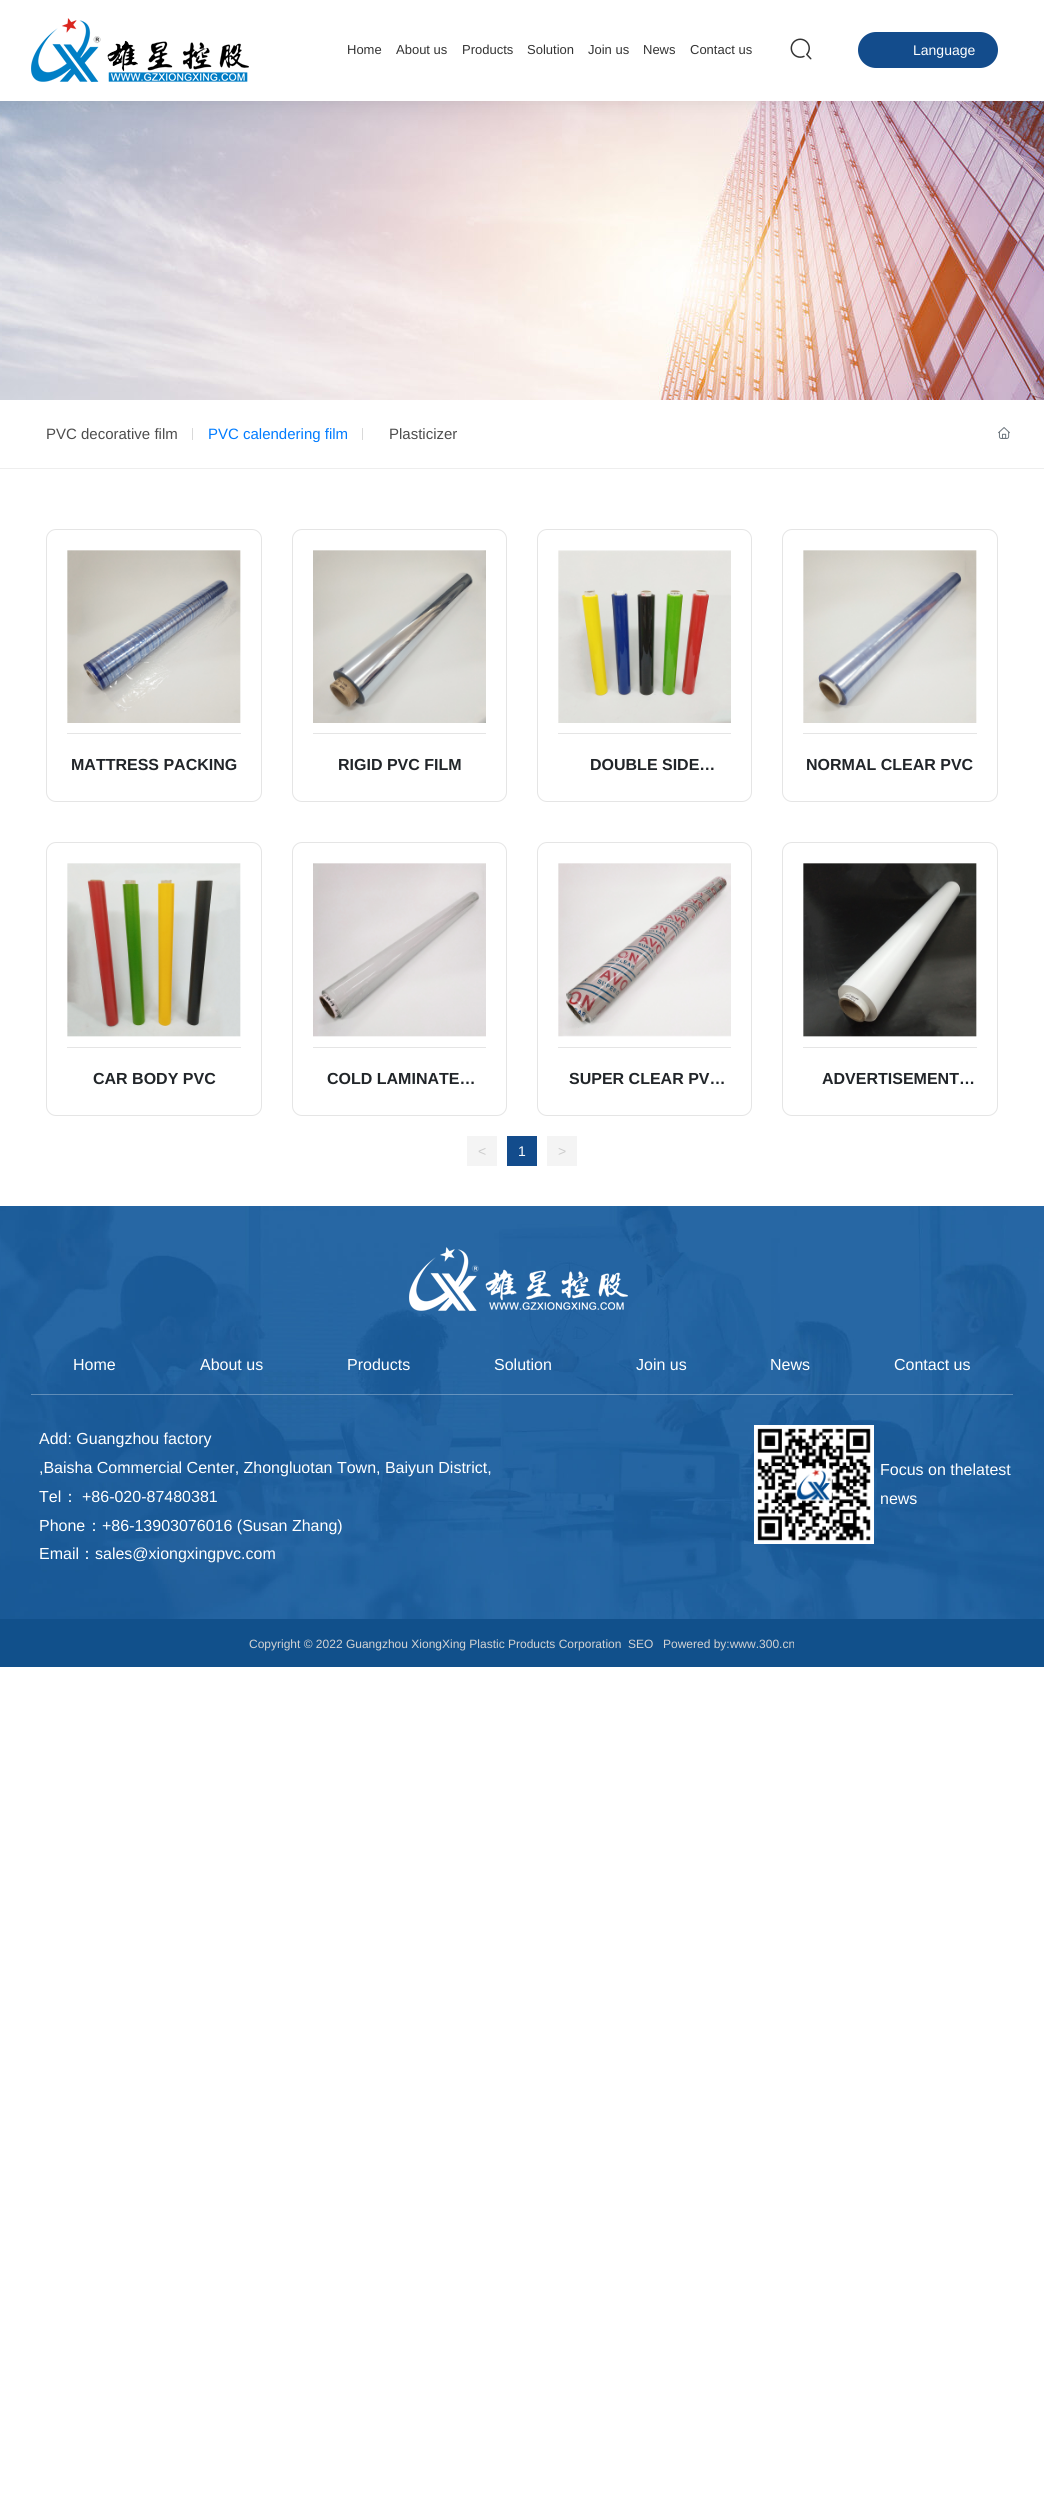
#include <cairo.h>
#include <math.h>
#include <stddef.h>


static void round_rect(cairo_t *cr, double x, double y, double w, double h, double r) {
    cairo_new_sub_path(cr);
    cairo_arc(cr, x + w - r, y + h - r, r, 0, M_PI / 2);
    cairo_arc(cr, x + r, y + h - r, r, M_PI / 2, M_PI);
    cairo_arc(cr, x + r, y + r, r, M_PI, 1.5 * M_PI);
    cairo_arc(cr, x + w - r, y + r, r, 1.5 * M_PI, 2 * M_PI);
    cairo_close_path(cr);
}

static void shadow(cairo_t *cr, double x, double y, double w, double h, double r, double blur, double alpha) {
    cairo_push_group_with_content(cr, CAIRO_CONTENT_ALPHA);
    cairo_set_operator(cr, CAIRO_OPERATOR_SOURCE);
    for (int i = 15; i >= -15 && fmin(w, h) + blur * i / 3 > 0; i -= 2) {
        double e = blur * i / 6;
        cairo_set_source_rgba(cr, 0, 0, 0, alpha * erfc((i - 1) / 8.5) / 2);
        round_rect(cr, x - e, y - e, w + 2 * e, h + 2 * e, fmax(0, fmin(r + e + blur * .6, fmin(w, h) / 2 + e)));
        cairo_fill(cr);
    }
    cairo_pattern_t *soft = cairo_pop_group(cr);
    cairo_mask(cr, soft);
    cairo_pattern_destroy(soft);
}

static void picture(cairo_t *cr, const char *path, double x, double y, double w, double h) {
    cairo_surface_t *image = cairo_image_surface_create_from_png(path);
    cairo_save(cr);
    cairo_set_source_surface(cr, image, x, y);
    cairo_rectangle(cr, x, y, w, h);
    cairo_fill(cr);
    cairo_restore(cr);
    cairo_surface_destroy(image);
}

int main(void) {
    cairo_surface_t *surface = cairo_image_surface_create(CAIRO_FORMAT_RGB24, 1044, 2518);
    cairo_t *cr = cairo_create(surface);
    cairo_font_options_t *options = cairo_font_options_create();
    cairo_font_options_set_hint_metrics(options, CAIRO_HINT_METRICS_OFF);
    cairo_font_options_set_hint_style(options, CAIRO_HINT_STYLE_NONE);
    cairo_set_font_options(cr, options);
    cairo_set_miter_limit(cr, 4);
    cairo_set_source_rgb(cr, 1, 1, 1);
    cairo_paint(cr);
    picture(cr, "img3.png", 0, 101, 1044, 299);
    cairo_set_source_rgb(cr, 0, 0, 0);
    shadow(cr, 0, 0, 1044, 101, 0, 7.5, 0.1);
    cairo_set_source_rgb(cr, 1, 1, 1);
    cairo_rectangle(cr, 0, 0, 1044, 101);
    cairo_fill(cr);
    picture(cr, "img1.png", 31, 18, 218, 64);
    cairo_select_font_face(cr, "Liberation Sans", CAIRO_FONT_SLANT_NORMAL, CAIRO_FONT_WEIGHT_NORMAL);
    cairo_set_font_size(cr, 13);
    cairo_set_source_rgb(cr, 0.2, 0.2, 0.2);
    cairo_move_to(cr, 347, 54);
    cairo_show_text(cr, "Home");
    cairo_move_to(cr, 396, 54);
    cairo_show_text(cr, "About us");
    cairo_move_to(cr, 462, 54);
    cairo_show_text(cr, "Products");
    cairo_move_to(cr, 527, 54);
    cairo_show_text(cr, "Solution");
    cairo_move_to(cr, 588, 54);
    cairo_show_text(cr, "Join us");
    cairo_move_to(cr, 643, 54);
    cairo_show_text(cr, "News");
    cairo_move_to(cr, 690, 54);
    cairo_show_text(cr, "Contact us");
    picture(cr, "img2.png", 790, 38, 22, 22);
    cairo_set_source_rgb(cr, 0.075, 0.298, 0.549);
    round_rect(cr, 858, 32, 140, 36, 18);
    cairo_fill(cr);
    cairo_set_font_size(cr, 14);
    cairo_set_source_rgb(cr, 1, 1, 1);
    cairo_move_to(cr, 913, 55);
    cairo_show_text(cr, "Language");
    cairo_set_source_rgb(cr, 0.933, 0.933, 0.933);
    cairo_rectangle(cr, 0, 468, 1044, 1);
    cairo_fill(cr);
    cairo_set_font_size(cr, 15);
    cairo_set_source_rgb(cr, 0.302, 0.302, 0.302);
    cairo_move_to(cr, 46, 439);
    cairo_show_text(cr, "PVC decorative film");
    cairo_set_source_rgb(cr, 0.851, 0.851, 0.851);
    cairo_rectangle(cr, 192, 428, 1, 12);
    cairo_fill(cr);
    cairo_set_source_rgb(cr, 0, 0.482, 1);
    cairo_move_to(cr, 208, 439);
    cairo_show_text(cr, "PVC calendering film");
    cairo_set_source_rgb(cr, 0.851, 0.851, 0.851);
    cairo_rectangle(cr, 362, 428, 1, 12);
    cairo_fill(cr);
    cairo_set_source_rgb(cr, 0.302, 0.302, 0.302);
    cairo_move_to(cr, 389, 439);
    cairo_show_text(cr, "Plasticizer");
    picture(cr, "img4.png", 998, 427, 12, 12);
    round_rect(cr, 46.5, 529.5, 215, 272, 9.5);
    cairo_set_source_rgb(cr, 0.898, 0.898, 0.898);
    cairo_set_line_width(cr, 1);
    cairo_stroke(cr);
    picture(cr, "img5.png", 67, 550, 174, 173);
    cairo_rectangle(cr, 67, 733, 174, 1);
    cairo_fill(cr);
    cairo_select_font_face(cr, "Liberation Sans", CAIRO_FONT_SLANT_NORMAL, CAIRO_FONT_WEIGHT_BOLD);
    cairo_set_font_size(cr, 16);
    cairo_set_source_rgb(cr, 0.129, 0.145, 0.161);
    cairo_move_to(cr, 71, 770);
    cairo_show_text(cr, "MATTRESS PACKING");
    round_rect(cr, 292.5, 529.5, 214, 272, 9.5);
    cairo_set_source_rgb(cr, 0.898, 0.898, 0.898);
    cairo_stroke(cr);
    picture(cr, "img6.png", 313, 550, 173, 173);
    cairo_rectangle(cr, 313, 733, 173, 1);
    cairo_fill(cr);
    cairo_set_source_rgb(cr, 0.129, 0.145, 0.161);
    cairo_move_to(cr, 338, 770);
    cairo_show_text(cr, "RIGID PVC FILM");
    round_rect(cr, 537.5, 529.5, 214, 272, 9.5);
    cairo_set_source_rgb(cr, 0.898, 0.898, 0.898);
    cairo_stroke(cr);
    picture(cr, "img7.png", 558, 550, 173, 173);
    cairo_rectangle(cr, 558, 733, 173, 1);
    cairo_fill(cr);
    cairo_set_source_rgb(cr, 0.129, 0.145, 0.161);
    cairo_move_to(cr, 590, 770);
    cairo_show_text(cr, "DOUBLE SIDE…");
    round_rect(cr, 782.5, 529.5, 215, 272, 9.5);
    cairo_set_source_rgb(cr, 0.898, 0.898, 0.898);
    cairo_stroke(cr);
    picture(cr, "img8.png", 803, 550, 174, 173);
    cairo_rectangle(cr, 803, 733, 174, 1);
    cairo_fill(cr);
    cairo_set_source_rgb(cr, 0.129, 0.145, 0.161);
    cairo_move_to(cr, 806, 770);
    cairo_show_text(cr, "NORMAL CLEAR PVC");
    round_rect(cr, 46.5, 842.5, 215, 273, 9.5);
    cairo_set_source_rgb(cr, 0.898, 0.898, 0.898);
    cairo_stroke(cr);
    picture(cr, "img9.png", 67, 863, 174, 174);
    cairo_rectangle(cr, 67, 1047, 174, 1);
    cairo_fill(cr);
    cairo_set_source_rgb(cr, 0.129, 0.145, 0.161);
    cairo_move_to(cr, 93, 1084);
    cairo_show_text(cr, "CAR BODY PVC");
    round_rect(cr, 292.5, 842.5, 214, 273, 9.5);
    cairo_set_source_rgb(cr, 0.898, 0.898, 0.898);
    cairo_stroke(cr);
    picture(cr, "img10.png", 313, 863, 173, 174);
    cairo_rectangle(cr, 313, 1047, 173, 1);
    cairo_fill(cr);
    cairo_set_source_rgb(cr, 0.129, 0.145, 0.161);
    cairo_move_to(cr, 327, 1084);
    cairo_show_text(cr, "COLD LAMINATE…");
    round_rect(cr, 537.5, 842.5, 214, 273, 9.5);
    cairo_set_source_rgb(cr, 0.898, 0.898, 0.898);
    cairo_stroke(cr);
    picture(cr, "img11.png", 558, 863, 173, 174);
    cairo_rectangle(cr, 558, 1047, 173, 1);
    cairo_fill(cr);
    cairo_set_source_rgb(cr, 0.129, 0.145, 0.161);
    cairo_move_to(cr, 569, 1084);
    cairo_show_text(cr, "SUPER CLEAR PV…");
    round_rect(cr, 782.5, 842.5, 215, 273, 9.5);
    cairo_set_source_rgb(cr, 0.898, 0.898, 0.898);
    cairo_stroke(cr);
    picture(cr, "img12.png", 803, 863, 174, 174);
    cairo_rectangle(cr, 803, 1047, 174, 1);
    cairo_fill(cr);
    cairo_set_source_rgb(cr, 0.129, 0.145, 0.161);
    cairo_move_to(cr, 822, 1084);
    cairo_show_text(cr, "ADVERTISEMENT…");
    cairo_set_source_rgb(cr, 0.957, 0.957, 0.957);
    cairo_rectangle(cr, 467, 1136, 30, 30);
    cairo_fill(cr);
    cairo_select_font_face(cr, "Liberation Sans", CAIRO_FONT_SLANT_NORMAL, CAIRO_FONT_WEIGHT_NORMAL);
    cairo_set_font_size(cr, 14);
    cairo_set_source_rgb(cr, 0.8, 0.8, 0.8);
    cairo_move_to(cr, 478, 1156);
    cairo_show_text(cr, "<");
    cairo_set_source_rgb(cr, 0.075, 0.298, 0.549);
    cairo_rectangle(cr, 507, 1136, 30, 30);
    cairo_fill(cr);
    cairo_set_source_rgb(cr, 1, 1, 1);
    cairo_move_to(cr, 518, 1156);
    cairo_show_text(cr, "1");
    cairo_set_source_rgb(cr, 0.957, 0.957, 0.957);
    cairo_rectangle(cr, 547, 1136, 30, 30);
    cairo_fill(cr);
    cairo_set_source_rgb(cr, 0.8, 0.8, 0.8);
    cairo_move_to(cr, 558, 1156);
    cairo_show_text(cr, ">");
    picture(cr, "img13.png", 0, 1206, 1044, 413);
    picture(cr, "img14.png", 409, 1247, 219, 64);
    cairo_set_font_size(cr, 16);
    cairo_set_source_rgb(cr, 1, 1, 1);
    cairo_move_to(cr, 73, 1370);
    cairo_show_text(cr, "Home");
    cairo_move_to(cr, 200, 1370);
    cairo_show_text(cr, "About us");
    cairo_move_to(cr, 347, 1370);
    cairo_show_text(cr, "Products");
    cairo_move_to(cr, 494, 1370);
    cairo_show_text(cr, "Solution");
    cairo_move_to(cr, 636, 1370);
    cairo_show_text(cr, "Join us");
    cairo_move_to(cr, 770, 1370);
    cairo_show_text(cr, "News");
    cairo_move_to(cr, 894, 1370);
    cairo_show_text(cr, "Contact us");
    cairo_set_source_rgba(cr, 1, 1, 1, 0.3);
    cairo_rectangle(cr, 31, 1394, 982, 1);
    cairo_fill(cr);
    cairo_set_source_rgb(cr, 1, 1, 1);
    cairo_move_to(cr, 39, 1444);
    cairo_show_text(cr, "Add: Guangzhou factory");
    cairo_move_to(cr, 39, 1473);
    cairo_show_text(cr, ",Baisha Commercial Center, Zhongluotan Town, Baiyun District,");
    cairo_move_to(cr, 39, 1502);
    cairo_show_text(cr, "Tel");
    cairo_select_font_face(cr, "WenQuanYi Zen Hei Medium", CAIRO_FONT_SLANT_NORMAL, CAIRO_FONT_WEIGHT_NORMAL);
    cairo_move_to(cr, 62, 1502);
    cairo_show_text(cr, "：");
    cairo_select_font_face(cr, "Liberation Sans", CAIRO_FONT_SLANT_NORMAL, CAIRO_FONT_WEIGHT_NORMAL);
    cairo_move_to(cr, 82, 1502);
    cairo_show_text(cr, "+86-020-87480381");
    cairo_move_to(cr, 39, 1531);
    cairo_show_text(cr, "Phone");
    cairo_select_font_face(cr, "WenQuanYi Zen Hei Medium", CAIRO_FONT_SLANT_NORMAL, CAIRO_FONT_WEIGHT_NORMAL);
    cairo_move_to(cr, 86, 1531);
    cairo_show_text(cr, "：");
    cairo_select_font_face(cr, "Liberation Sans", CAIRO_FONT_SLANT_NORMAL, CAIRO_FONT_WEIGHT_NORMAL);
    cairo_move_to(cr, 102, 1531);
    cairo_show_text(cr, "+86-13903076016 (Susan Zhang)");
    cairo_move_to(cr, 39, 1559);
    cairo_show_text(cr, "Email");
    cairo_select_font_face(cr, "WenQuanYi Zen Hei Medium", CAIRO_FONT_SLANT_NORMAL, CAIRO_FONT_WEIGHT_NORMAL);
    cairo_move_to(cr, 79, 1559);
    cairo_show_text(cr, "：");
    cairo_select_font_face(cr, "Liberation Sans", CAIRO_FONT_SLANT_NORMAL, CAIRO_FONT_WEIGHT_NORMAL);
    cairo_move_to(cr, 95, 1559);
    cairo_show_text(cr, "sales@xiongxingpvc.com");
    picture(cr, "img15.png", 754, 1425, 120, 119);
    cairo_move_to(cr, 880, 1475);
    cairo_show_text(cr, "Focus on thelatest");
    cairo_move_to(cr, 880, 1504);
    cairo_show_text(cr, "news");
    cairo_set_source_rgb(cr, 0.067, 0.314, 0.545);
    cairo_rectangle(cr, 0, 1619, 1044, 48);
    cairo_fill(cr);
    cairo_set_font_size(cr, 12);
    cairo_set_source_rgb(cr, 0.827, 0.827, 0.827);
    cairo_move_to(cr, 249, 1648);
    cairo_show_text(cr, "Copyright © 2022 Guangzhou XiongXing Plastic Products Corporation");
    cairo_move_to(cr, 628, 1648);
    cairo_show_text(cr, "SEO");
    cairo_move_to(cr, 663, 1648);
    cairo_show_text(cr, "Powered by:www.300.cn");
    cairo_surface_write_to_png(surface, "page.png");
    cairo_font_options_destroy(options);
    cairo_destroy(cr);
    cairo_surface_destroy(surface);
    return 0;
}
